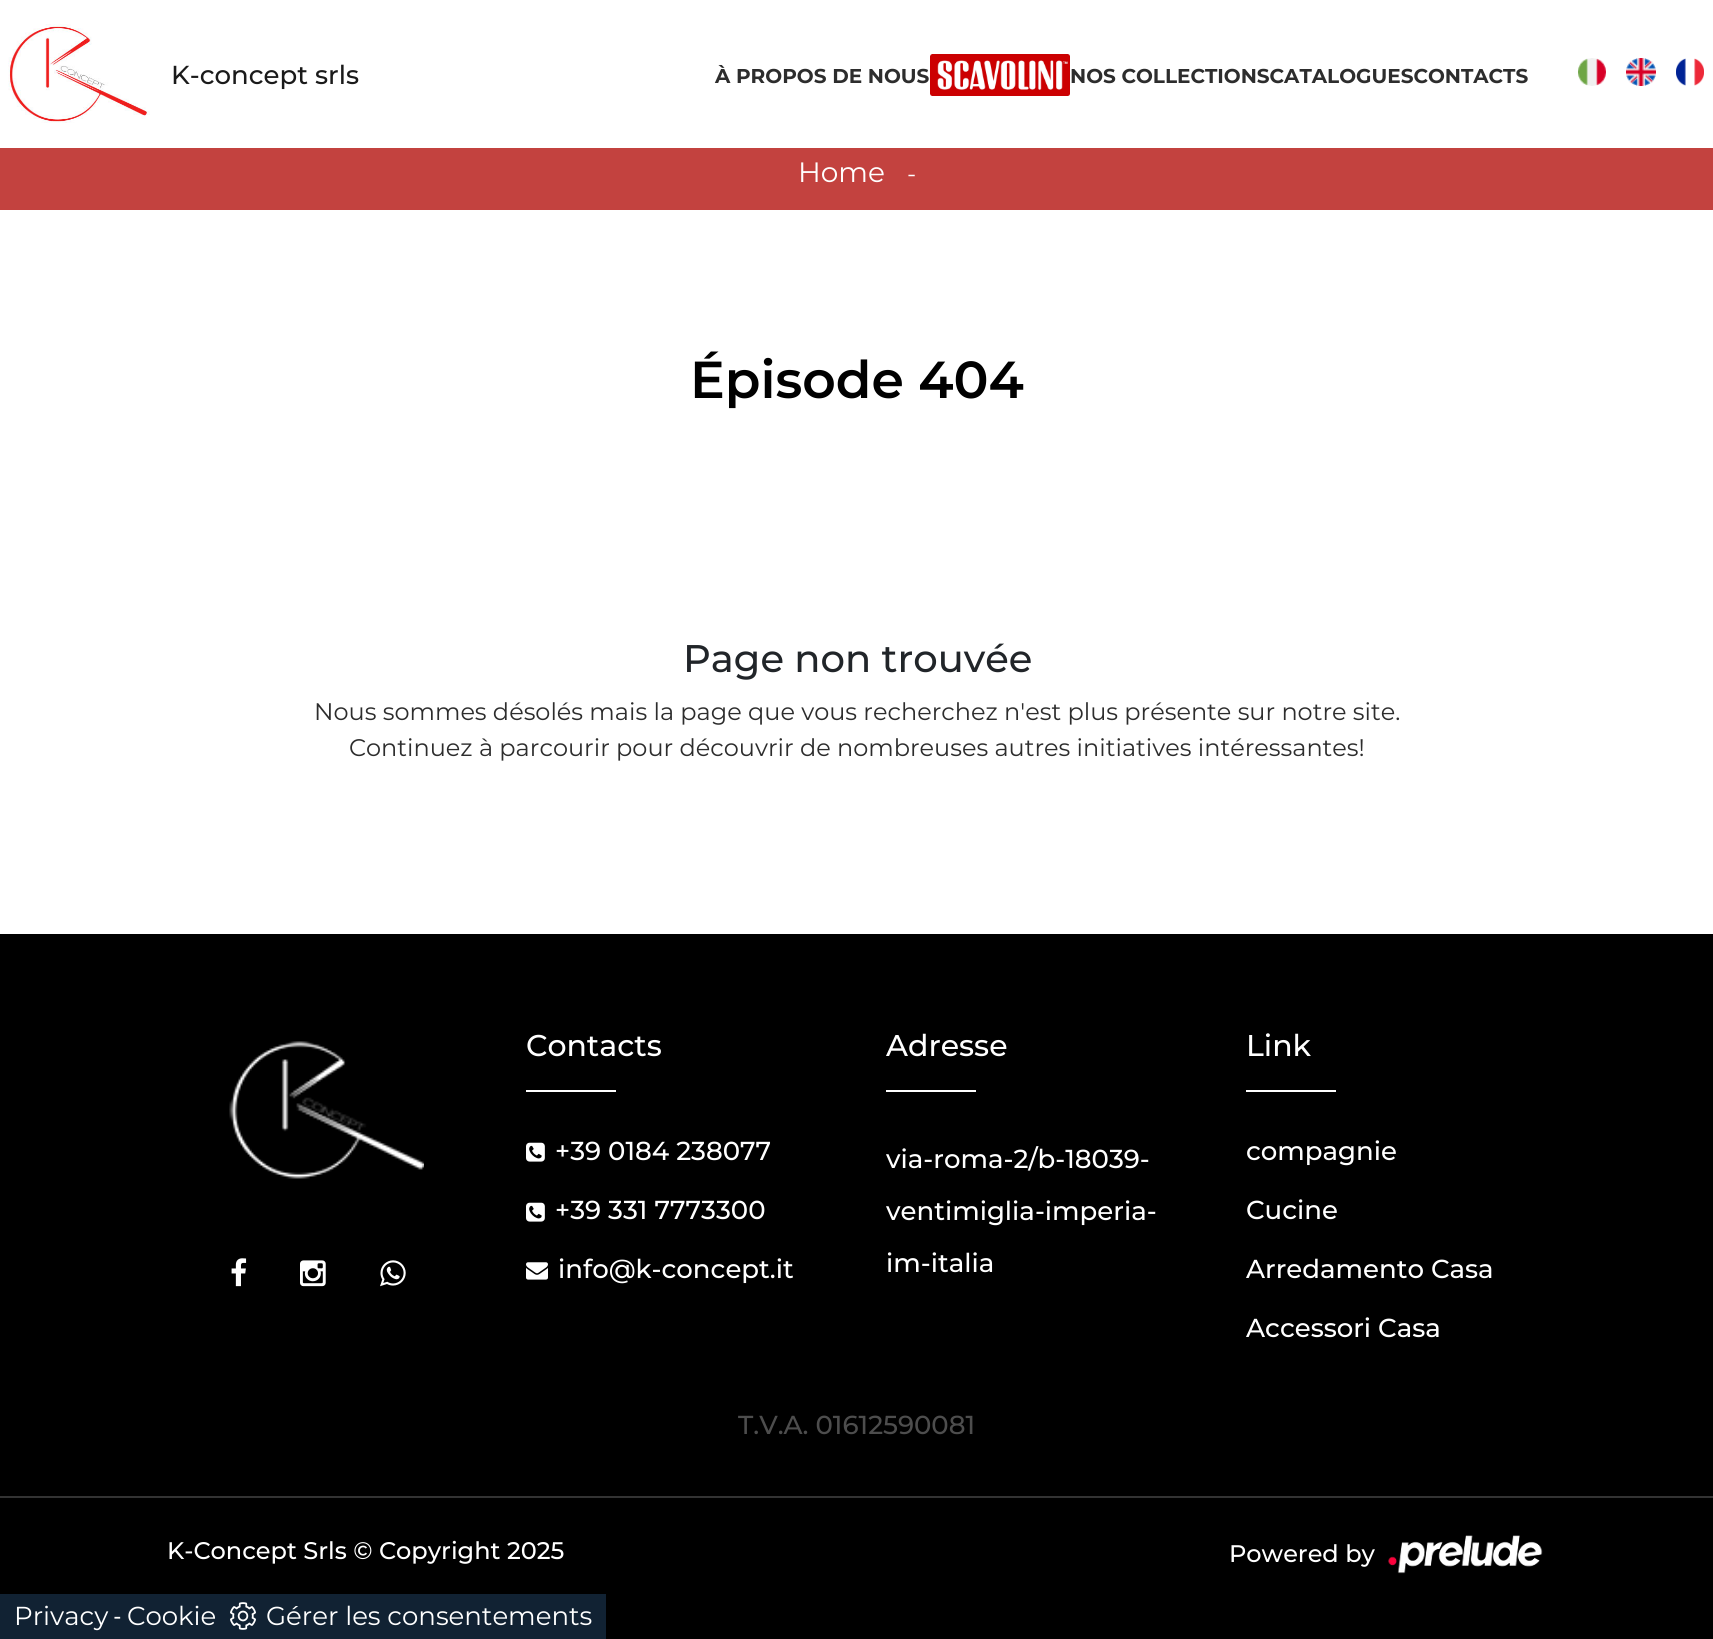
#include <cairo.h>
#include <math.h>
#include <stddef.h>


static void picture(cairo_t *cr, const char *path, double x, double y, double w, double h) {
    cairo_surface_t *image = cairo_image_surface_create_from_png(path);
    cairo_save(cr);
    cairo_set_source_surface(cr, image, x, y);
    cairo_rectangle(cr, x, y, w, h);
    cairo_fill(cr);
    cairo_restore(cr);
    cairo_surface_destroy(image);
}

int main(void) {
    cairo_surface_t *surface = cairo_image_surface_create(CAIRO_FORMAT_RGB24, 1713, 1639);
    cairo_t *cr = cairo_create(surface);
    cairo_font_options_t *options = cairo_font_options_create();
    cairo_font_options_set_hint_metrics(options, CAIRO_HINT_METRICS_OFF);
    cairo_font_options_set_hint_style(options, CAIRO_HINT_STYLE_NONE);
    cairo_set_font_options(cr, options);
    cairo_set_miter_limit(cr, 4);
    cairo_set_source_rgb(cr, 1, 1, 1);
    cairo_paint(cr);
    picture(cr, "img1.png", 8, 24, 142, 99);
    cairo_select_font_face(cr, "Montserrat Medium", CAIRO_FONT_SLANT_NORMAL, CAIRO_FONT_WEIGHT_NORMAL);
    cairo_set_font_size(cr, 26);
    cairo_set_source_rgb(cr, 0.102, 0.102, 0.102);
    cairo_move_to(cr, 171, 84);
    cairo_show_text(cr, "K-concept srls");
    cairo_select_font_face(cr, "Montserrat", CAIRO_FONT_SLANT_NORMAL, CAIRO_FONT_WEIGHT_BOLD);
    cairo_set_font_size(cr, 20);
    cairo_set_source_rgb(cr, 0.176, 0.176, 0.176);
    cairo_move_to(cr, 715, 83);
    cairo_show_text(cr, "À PROPOS DE NOUS");
    picture(cr, "img2.png", 930, 54, 140, 42);
    cairo_move_to(cr, 1070, 83);
    cairo_show_text(cr, "NOS COLLECTIONSCATALOGUESCONTACTS");
    picture(cr, "img3.png", 1578, 58, 28, 28);
    picture(cr, "img4.png", 1626, 58, 30, 28);
    picture(cr, "img5.png", 1676, 58, 28, 28);
    cairo_set_source_rgb(cr, 0.765, 0.259, 0.247);
    cairo_rectangle(cr, 0, 148, 1713, 62);
    cairo_fill(cr);
    cairo_select_font_face(cr, "Montserrat", CAIRO_FONT_SLANT_NORMAL, CAIRO_FONT_WEIGHT_NORMAL);
    cairo_set_font_size(cr, 28);
    cairo_set_source_rgb(cr, 1, 1, 1);
    cairo_move_to(cr, 798, 182);
    cairo_show_text(cr, "Home");
    cairo_set_font_size(cr, 24);
    cairo_move_to(cr, 907, 182);
    cairo_show_text(cr, "-");
    cairo_select_font_face(cr, "Montserrat SemiBold", CAIRO_FONT_SLANT_NORMAL, CAIRO_FONT_WEIGHT_NORMAL);
    cairo_set_font_size(cr, 52);
    cairo_set_source_rgb(cr, 0, 0, 0);
    cairo_move_to(cr, 690, 398);
    cairo_show_text(cr, "Épisode 404");
    cairo_select_font_face(cr, "Montserrat Medium", CAIRO_FONT_SLANT_NORMAL, CAIRO_FONT_WEIGHT_NORMAL);
    cairo_set_font_size(cr, 38.5);
    cairo_set_source_rgb(cr, 0.129, 0.145, 0.161);
    cairo_move_to(cr, 683, 672);
    cairo_show_text(cr, "Page non trouvée");
    cairo_select_font_face(cr, "Montserrat", CAIRO_FONT_SLANT_NORMAL, CAIRO_FONT_WEIGHT_NORMAL);
    cairo_set_font_size(cr, 24);
    cairo_set_source_rgb(cr, 0.176, 0.176, 0.176);
    cairo_move_to(cr, 314, 720);
    cairo_show_text(cr, "Nous sommes désolés mais la page que vous recherchez n'est plus présente sur notre site.");
    cairo_move_to(cr, 349, 756);
    cairo_show_text(cr, "Continuez à parcourir pour découvrir de nombreuses autres initiatives intéressantes!");
    cairo_set_source_rgb(cr, 0, 0, 0);
    cairo_rectangle(cr, 0, 934, 1713, 705);
    cairo_fill(cr);
    picture(cr, "img6.png", 229, 1041, 195, 138);
    picture(cr, "img7.png", 231, 1258, 16, 29);
    picture(cr, "img8.png", 300, 1260, 26, 27);
    picture(cr, "img9.png", 380, 1260, 26, 27);
    cairo_select_font_face(cr, "Montserrat Medium", CAIRO_FONT_SLANT_NORMAL, CAIRO_FONT_WEIGHT_NORMAL);
    cairo_set_font_size(cr, 30);
    cairo_set_source_rgb(cr, 1, 1, 1);
    cairo_move_to(cr, 526, 1056);
    cairo_show_text(cr, "Contacts");
    cairo_rectangle(cr, 526, 1090, 90, 2);
    cairo_fill(cr);
    picture(cr, "img10.png", 526, 1142, 19, 20);
    cairo_set_font_size(cr, 26);
    cairo_move_to(cr, 555, 1160);
    cairo_show_text(cr, "+39 0184 238077");
    picture(cr, "img10.png", 526, 1202, 19, 20);
    cairo_move_to(cr, 555, 1219);
    cairo_show_text(cr, "+39 331 7773300");
    picture(cr, "img11.png", 526, 1262, 22, 18);
    cairo_move_to(cr, 558, 1278);
    cairo_show_text(cr, "info@k-concept.it");
    cairo_set_font_size(cr, 30);
    cairo_move_to(cr, 886, 1056);
    cairo_show_text(cr, "Adresse");
    cairo_rectangle(cr, 886, 1090, 90, 2);
    cairo_fill(cr);
    cairo_set_font_size(cr, 26);
    cairo_move_to(cr, 886, 1168);
    cairo_show_text(cr, "via-roma-2/b-18039-");
    cairo_move_to(cr, 886, 1220);
    cairo_show_text(cr, "ventimiglia-imperia-");
    cairo_move_to(cr, 886, 1272);
    cairo_show_text(cr, "im-italia");
    cairo_set_font_size(cr, 30);
    cairo_move_to(cr, 1246, 1056);
    cairo_show_text(cr, "Link");
    cairo_rectangle(cr, 1246, 1090, 90, 2);
    cairo_fill(cr);
    cairo_set_font_size(cr, 26);
    cairo_move_to(cr, 1246, 1160);
    cairo_show_text(cr, "compagnie");
    cairo_move_to(cr, 1246, 1219);
    cairo_show_text(cr, "Cucine");
    cairo_move_to(cr, 1246, 1278);
    cairo_show_text(cr, "Arredamento Casa");
    cairo_move_to(cr, 1246, 1337);
    cairo_show_text(cr, "Accessori Casa");
    cairo_set_source_rgb(cr, 0.302, 0.302, 0.302);
    cairo_move_to(cr, 738, 1434);
    cairo_show_text(cr, "T.V.A. 01612590081");
    cairo_set_source_rgb(cr, 0.2, 0.2, 0.2);
    cairo_rectangle(cr, 0, 1496, 1713, 2);
    cairo_fill(cr);
    cairo_set_font_size(cr, 24);
    cairo_set_source_rgb(cr, 1, 1, 1);
    cairo_move_to(cr, 167, 1559);
    cairo_show_text(cr, "K-Concept Srls © Copyright 2025");
    cairo_move_to(cr, 1229, 1562);
    cairo_show_text(cr, "Powered by");
    picture(cr, "img12.png", 1388, 1535, 155, 39);
    cairo_set_source_rgb(cr, 0.067, 0.133, 0.2);
    cairo_rectangle(cr, 0, 1594, 606, 45);
    cairo_fill(cr);
    cairo_select_font_face(cr, "Montserrat", CAIRO_FONT_SLANT_NORMAL, CAIRO_FONT_WEIGHT_NORMAL);
    cairo_set_font_size(cr, 26);
    cairo_set_source_rgb(cr, 1, 1, 1);
    cairo_move_to(cr, 14, 1625);
    cairo_show_text(cr, "Privacy");
    cairo_select_font_face(cr, "Roboto", CAIRO_FONT_SLANT_NORMAL, CAIRO_FONT_WEIGHT_NORMAL);
    cairo_set_font_size(cr, 24);
    cairo_move_to(cr, 114, 1625);
    cairo_show_text(cr, "-");
    cairo_select_font_face(cr, "Montserrat", CAIRO_FONT_SLANT_NORMAL, CAIRO_FONT_WEIGHT_NORMAL);
    cairo_set_font_size(cr, 26);
    cairo_move_to(cr, 127, 1625);
    cairo_show_text(cr, "Cookie");
    picture(cr, "img13.png", 230, 1602, 26, 28);
    cairo_move_to(cr, 266, 1625);
    cairo_show_text(cr, "Gérer les consentements");
    cairo_surface_write_to_png(surface, "page.png");
    cairo_font_options_destroy(options);
    cairo_destroy(cr);
    cairo_surface_destroy(surface);
    return 0;
}
